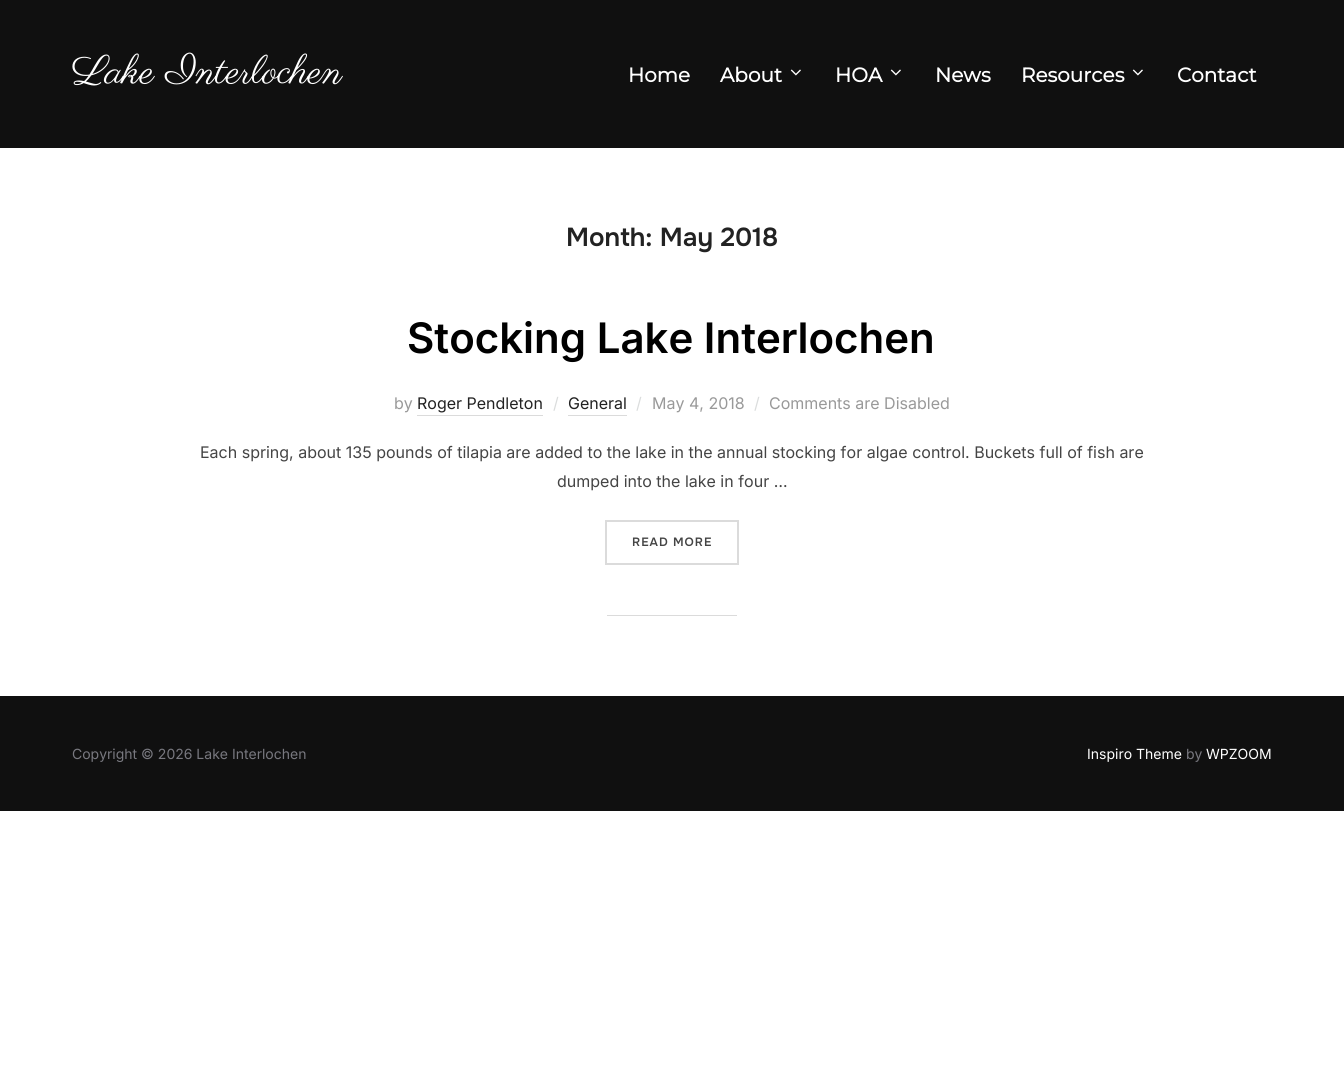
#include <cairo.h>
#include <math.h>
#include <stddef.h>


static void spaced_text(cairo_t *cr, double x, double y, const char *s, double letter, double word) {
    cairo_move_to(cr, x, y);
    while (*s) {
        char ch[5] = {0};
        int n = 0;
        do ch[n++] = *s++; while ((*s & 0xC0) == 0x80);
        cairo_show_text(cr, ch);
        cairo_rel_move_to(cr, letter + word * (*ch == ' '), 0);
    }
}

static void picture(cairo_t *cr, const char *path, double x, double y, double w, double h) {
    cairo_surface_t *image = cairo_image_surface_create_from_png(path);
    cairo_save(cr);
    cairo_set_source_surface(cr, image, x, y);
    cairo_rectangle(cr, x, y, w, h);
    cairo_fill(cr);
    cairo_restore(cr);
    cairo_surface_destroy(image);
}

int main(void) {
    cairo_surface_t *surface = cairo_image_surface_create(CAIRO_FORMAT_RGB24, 1344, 1083);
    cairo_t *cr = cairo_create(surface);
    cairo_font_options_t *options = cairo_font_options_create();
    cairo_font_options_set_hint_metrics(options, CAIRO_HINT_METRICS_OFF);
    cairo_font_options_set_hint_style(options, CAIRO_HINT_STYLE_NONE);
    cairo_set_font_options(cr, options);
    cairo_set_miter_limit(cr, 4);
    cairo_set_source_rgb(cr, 1, 1, 1);
    cairo_paint(cr);
    cairo_set_source_rgb(cr, 0.063, 0.063, 0.063);
    cairo_rectangle(cr, 0, 0, 1344, 148);
    cairo_fill(cr);
    cairo_select_font_face(cr, "Parisienne", CAIRO_FONT_SLANT_NORMAL, CAIRO_FONT_WEIGHT_NORMAL);
    cairo_set_font_size(cr, 40);
    cairo_set_source_rgb(cr, 1, 1, 1);
    cairo_move_to(cr, 72, 83);
    cairo_show_text(cr, "Lake Interlochen");
    cairo_select_font_face(cr, "Montserrat", CAIRO_FONT_SLANT_NORMAL, CAIRO_FONT_WEIGHT_BOLD);
    cairo_set_font_size(cr, 20);
    cairo_move_to(cr, 628, 82);
    cairo_show_text(cr, "Home");
    cairo_move_to(cr, 720, 82);
    cairo_show_text(cr, "About");
    picture(cr, "img1.png", 790, 69, 11, 7);
    cairo_move_to(cr, 835, 82);
    cairo_show_text(cr, "HOA");
    picture(cr, "img1.png", 890, 69, 11, 7);
    cairo_move_to(cr, 935, 82);
    cairo_show_text(cr, "News");
    cairo_move_to(cr, 1021, 82);
    cairo_show_text(cr, "Resources");
    picture(cr, "img1.png", 1132, 69, 11, 7);
    cairo_move_to(cr, 1177, 82);
    cairo_show_text(cr, "Contact");
    cairo_select_font_face(cr, "Onest SemiBold", CAIRO_FONT_SLANT_NORMAL, CAIRO_FONT_WEIGHT_NORMAL);
    cairo_set_font_size(cr, 26);
    cairo_set_source_rgb(cr, 0.133, 0.133, 0.133);
    cairo_move_to(cr, 566, 246);
    cairo_show_text(cr, "Month: May 2018");
    cairo_select_font_face(cr, "Inter SemiBold", CAIRO_FONT_SLANT_NORMAL, CAIRO_FONT_WEIGHT_NORMAL);
    cairo_set_font_size(cr, 42);
    cairo_set_source_rgb(cr, 0, 0, 0);
    cairo_move_to(cr, 407, 353);
    cairo_show_text(cr, "Stocking Lake Interlochen");
    cairo_select_font_face(cr, "Inter", CAIRO_FONT_SLANT_NORMAL, CAIRO_FONT_WEIGHT_NORMAL);
    cairo_set_font_size(cr, 16);
    cairo_set_source_rgb(cr, 0.6, 0.6, 0.6);
    cairo_move_to(cr, 394, 409);
    cairo_show_text(cr, "by");
    cairo_set_source_rgb(cr, 0.133, 0.133, 0.133);
    cairo_move_to(cr, 417, 409);
    cairo_show_text(cr, "Roger Pendleton");
    cairo_set_source_rgb(cr, 0.859, 0.859, 0.859);
    cairo_rectangle(cr, 417, 415, 126, 1);
    cairo_fill(cr);
    cairo_set_source_rgb(cr, 0.859, 0.867, 0.867);
    cairo_move_to(cr, 553, 409);
    cairo_show_text(cr, "/");
    cairo_set_source_rgb(cr, 0.133, 0.133, 0.133);
    cairo_move_to(cr, 568, 409);
    cairo_show_text(cr, "General");
    cairo_set_source_rgb(cr, 0.859, 0.859, 0.859);
    cairo_rectangle(cr, 568, 415, 59, 1);
    cairo_fill(cr);
    cairo_set_source_rgb(cr, 0.859, 0.867, 0.867);
    cairo_move_to(cr, 636, 409);
    cairo_show_text(cr, "/");
    cairo_set_source_rgb(cr, 0.6, 0.6, 0.6);
    cairo_move_to(cr, 652, 409);
    cairo_show_text(cr, "May 4, 2018");
    cairo_set_source_rgb(cr, 0.859, 0.867, 0.867);
    cairo_move_to(cr, 754, 409);
    cairo_show_text(cr, "/");
    cairo_set_source_rgb(cr, 0.6, 0.6, 0.6);
    cairo_move_to(cr, 769, 409);
    cairo_show_text(cr, "Comments are Disabled");
    cairo_set_source_rgb(cr, 0.267, 0.267, 0.267);
    cairo_move_to(cr, 200, 458);
    cairo_show_text(cr, "Each spring, about 135 pounds of tilapia are added to the lake in the annual stocking for algae control. Buckets full of fish are");
    cairo_move_to(cr, 557, 487);
    cairo_show_text(cr, "dumped into the lake in four …");
    cairo_rectangle(cr, 606, 521, 132, 43);
    cairo_set_source_rgb(cr, 0.859, 0.859, 0.859);
    cairo_stroke(cr);
    cairo_select_font_face(cr, "Onest SemiBold", CAIRO_FONT_SLANT_NORMAL, CAIRO_FONT_WEIGHT_NORMAL);
    cairo_set_font_size(cr, 12);
    cairo_set_source_rgb(cr, 0.267, 0.267, 0.267);
    spaced_text(cr, 632, 546, "READ MORE", 1, 0);
    cairo_set_source_rgb(cr, 0.859, 0.859, 0.859);
    cairo_rectangle(cr, 607, 615, 130, 1);
    cairo_fill(cr);
    cairo_set_source_rgb(cr, 0.063, 0.063, 0.063);
    cairo_rectangle(cr, 0, 696, 1344, 115);
    cairo_fill(cr);
    cairo_select_font_face(cr, "Inter", CAIRO_FONT_SLANT_NORMAL, CAIRO_FONT_WEIGHT_NORMAL);
    cairo_set_font_size(cr, 14);
    cairo_set_source_rgb(cr, 0.471, 0.471, 0.498);
    cairo_move_to(cr, 72, 759);
    cairo_show_text(cr, "Copyright © 2026 Lake Interlochen");
    cairo_set_source_rgb(cr, 1, 1, 1);
    cairo_move_to(cr, 1087, 759);
    cairo_show_text(cr, "Inspiro Theme");
    cairo_set_source_rgb(cr, 0.471, 0.471, 0.498);
    cairo_move_to(cr, 1186, 759);
    cairo_show_text(cr, "by");
    cairo_set_source_rgb(cr, 1, 1, 1);
    cairo_move_to(cr, 1206, 759);
    cairo_show_text(cr, "WPZOOM");
    cairo_surface_write_to_png(surface, "page.png");
    cairo_font_options_destroy(options);
    cairo_destroy(cr);
    cairo_surface_destroy(surface);
    return 0;
}
